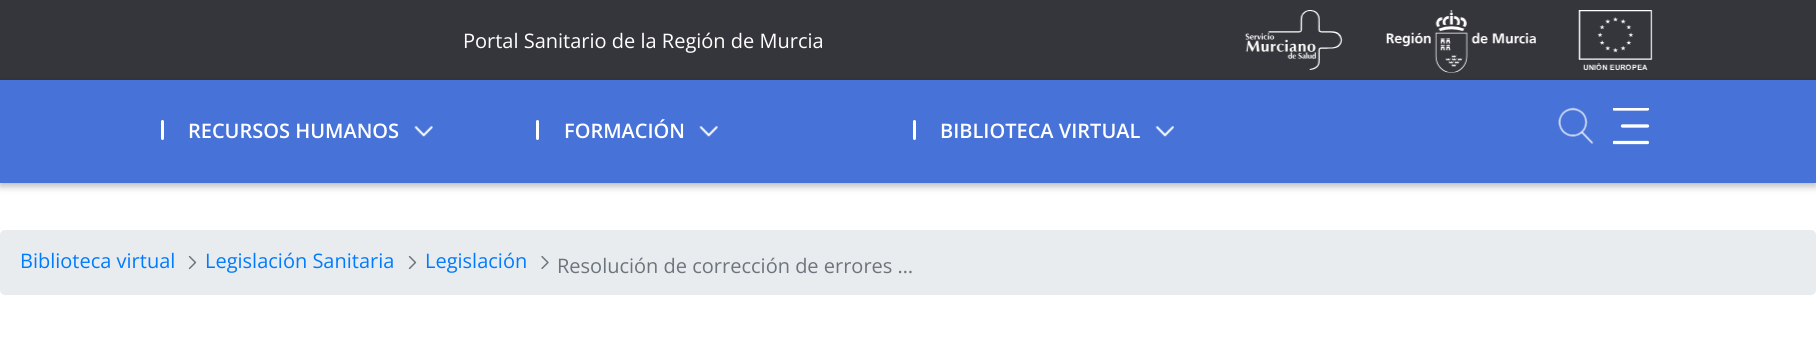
#include <cairo.h>
#include <math.h>
#include <stddef.h>


static void round_rect(cairo_t *cr, double x, double y, double w, double h, double r) {
    cairo_new_sub_path(cr);
    cairo_arc(cr, x + w - r, y + h - r, r, 0, M_PI / 2);
    cairo_arc(cr, x + r, y + h - r, r, M_PI / 2, M_PI);
    cairo_arc(cr, x + r, y + r, r, M_PI, 1.5 * M_PI);
    cairo_arc(cr, x + w - r, y + r, r, 1.5 * M_PI, 2 * M_PI);
    cairo_close_path(cr);
}

static void shadow(cairo_t *cr, double x, double y, double w, double h, double r, double blur, double alpha) {
    cairo_push_group_with_content(cr, CAIRO_CONTENT_ALPHA);
    cairo_set_operator(cr, CAIRO_OPERATOR_SOURCE);
    for (int i = 15; i >= -15 && fmin(w, h) + blur * i / 3 > 0; i -= 2) {
        double e = blur * i / 6;
        cairo_set_source_rgba(cr, 0, 0, 0, alpha * erfc((i - 1) / 8.5) / 2);
        round_rect(cr, x - e, y - e, w + 2 * e, h + 2 * e, fmax(0, fmin(r + e + blur * .6, fmin(w, h) / 2 + e)));
        cairo_fill(cr);
    }
    cairo_pattern_t *soft = cairo_pop_group(cr);
    cairo_mask(cr, soft);
    cairo_pattern_destroy(soft);
}

static void picture(cairo_t *cr, const char *path, double x, double y, double w, double h) {
    cairo_surface_t *image = cairo_image_surface_create_from_png(path);
    cairo_save(cr);
    cairo_set_source_surface(cr, image, x, y);
    cairo_rectangle(cr, x, y, w, h);
    cairo_fill(cr);
    cairo_restore(cr);
    cairo_surface_destroy(image);
}

int main(void) {
    cairo_surface_t *surface = cairo_image_surface_create(CAIRO_FORMAT_RGB24, 1816, 343);
    cairo_t *cr = cairo_create(surface);
    cairo_font_options_t *options = cairo_font_options_create();
    cairo_font_options_set_hint_metrics(options, CAIRO_HINT_METRICS_OFF);
    cairo_font_options_set_hint_style(options, CAIRO_HINT_STYLE_NONE);
    cairo_set_font_options(cr, options);
    cairo_set_miter_limit(cr, 4);
    cairo_set_source_rgb(cr, 1, 1, 1);
    cairo_paint(cr);
    cairo_set_source_rgb(cr, 0.208, 0.212, 0.231);
    cairo_rectangle(cr, 0, 0, 1816, 80);
    cairo_fill(cr);
    cairo_select_font_face(cr, "Open Sans", CAIRO_FONT_SLANT_NORMAL, CAIRO_FONT_WEIGHT_NORMAL);
    cairo_set_font_size(cr, 20);
    cairo_set_source_rgb(cr, 1, 1, 1);
    cairo_move_to(cr, 463, 48);
    cairo_show_text(cr, "Portal Sanitario de la Región de Murcia");
    picture(cr, "img1.png", 1245, 10, 98, 60);
    picture(cr, "img2.png", 1386, 10, 150, 63);
    picture(cr, "img3.png", 1578, 10, 75, 60);
    cairo_set_source_rgb(cr, 0, 0, 0);
    shadow(cr, 0, 84, 1816, 102, 0, 4, 0.29);
    cairo_set_source_rgb(cr, 0.278, 0.447, 0.847);
    cairo_rectangle(cr, 0, 80, 1816, 103);
    cairo_fill(cr);
    cairo_set_source_rgb(cr, 1, 1, 1);
    round_rect(cr, 161, 120, 3, 20, 1.5);
    cairo_fill(cr);
    cairo_select_font_face(cr, "Open Sans SemiBold", CAIRO_FONT_SLANT_NORMAL, CAIRO_FONT_WEIGHT_NORMAL);
    cairo_move_to(cr, 188, 138);
    cairo_show_text(cr, "RECURSOS HUMANOS");
    picture(cr, "img4.png", 414, 126, 19, 11);
    round_rect(cr, 536, 120, 3, 20, 1.5);
    cairo_fill(cr);
    cairo_move_to(cr, 564, 138);
    cairo_show_text(cr, "FORMACIÓN");
    picture(cr, "img5.png", 699, 126, 19, 11);
    round_rect(cr, 913, 120, 3, 20, 1.5);
    cairo_fill(cr);
    cairo_move_to(cr, 940, 138);
    cairo_show_text(cr, "BIBLIOTECA VIRTUAL");
    picture(cr, "img6.png", 1155, 126, 19, 11);
    picture(cr, "img7.png", 1558, 107, 36, 37);
    cairo_save(cr);
    cairo_rectangle(cr, 1613, 108, 36, 37);
    cairo_clip(cr);
    cairo_new_path(cr);
    cairo_move_to(cr, 1614, 109);
    cairo_line_to(cr, 1647.5, 109);
    cairo_set_line_width(cr, 3.3);
    cairo_set_line_cap(cr, CAIRO_LINE_CAP_ROUND);
    cairo_stroke(cr);
    cairo_restore(cr);
    cairo_new_path(cr);
    cairo_move_to(cr, 1622.5, 126);
    cairo_line_to(cr, 1647.5, 126);
    cairo_set_line_width(cr, 3.3);
    cairo_set_line_cap(cr, CAIRO_LINE_CAP_ROUND);
    cairo_stroke(cr);
    cairo_save(cr);
    cairo_rectangle(cr, 1613, 108, 36, 37);
    cairo_clip(cr);
    cairo_new_path(cr);
    cairo_move_to(cr, 1614, 142.5);
    cairo_line_to(cr, 1647.5, 142.5);
    cairo_stroke(cr);
    cairo_restore(cr);
    cairo_set_source_rgb(cr, 0.914, 0.925, 0.937);
    round_rect(cr, 0, 230, 1816, 65, 5);
    cairo_fill(cr);
    cairo_select_font_face(cr, "Open Sans", CAIRO_FONT_SLANT_NORMAL, CAIRO_FONT_WEIGHT_NORMAL);
    cairo_set_source_rgb(cr, 0, 0.482, 1);
    cairo_move_to(cr, 20, 268);
    cairo_show_text(cr, "Biblioteca virtual");
    picture(cr, "img8.png", 188, 255, 9, 15);
    cairo_move_to(cr, 205, 268);
    cairo_show_text(cr, "Legislación Sanitaria");
    picture(cr, "img8.png", 408, 255, 9, 15);
    cairo_move_to(cr, 425, 268);
    cairo_show_text(cr, "Legislación");
    picture(cr, "img9.png", 541, 256, 8, 13);
    cairo_set_source_rgb(cr, 0.424, 0.459, 0.49);
    cairo_move_to(cr, 557, 273);
    cairo_show_text(cr, "Resolución de corrección de errores …");
    cairo_surface_write_to_png(surface, "page.png");
    cairo_font_options_destroy(options);
    cairo_destroy(cr);
    cairo_surface_destroy(surface);
    return 0;
}
